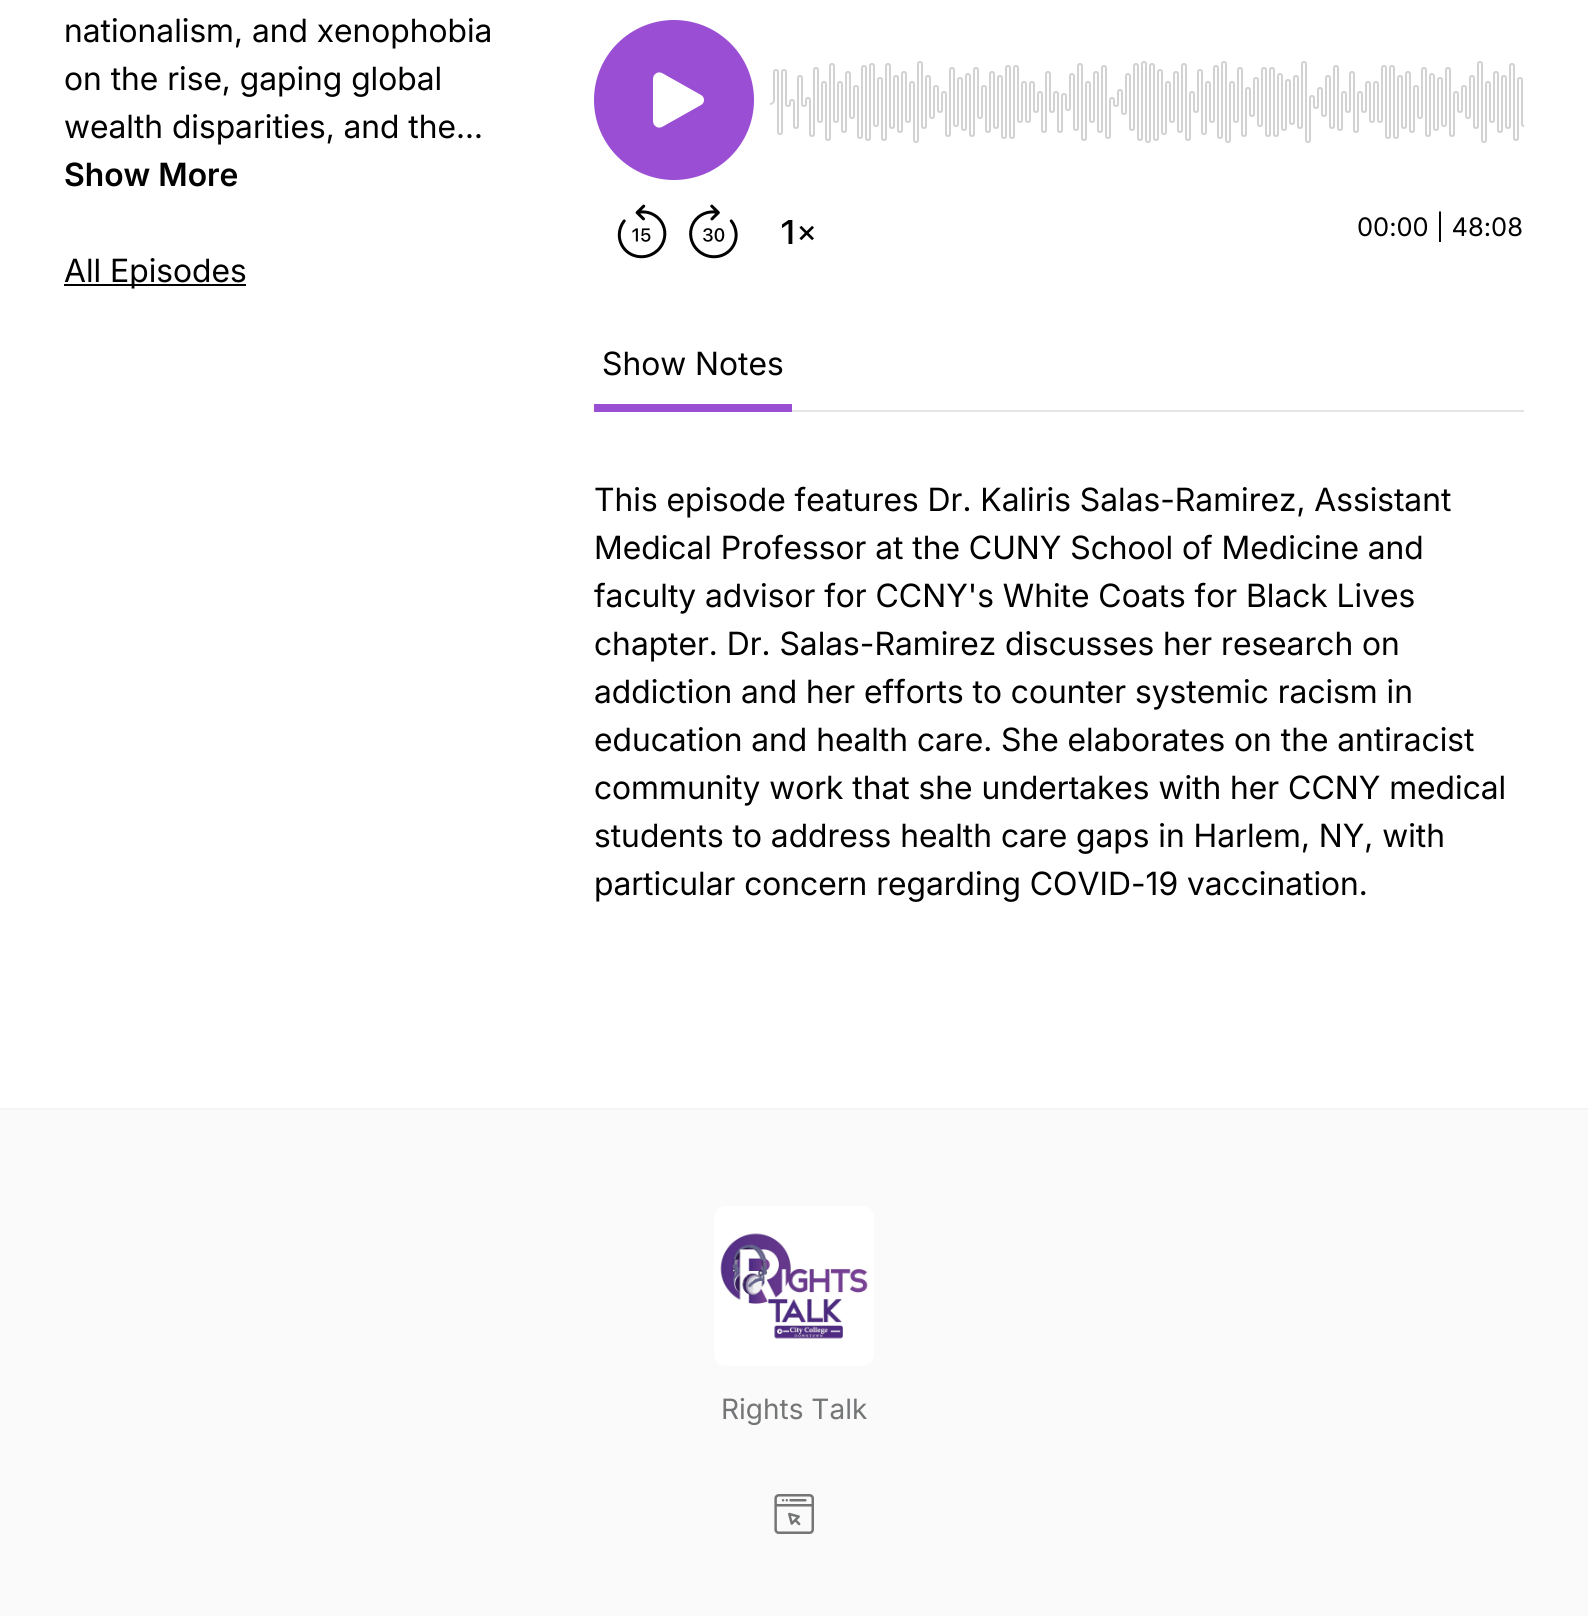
#include <cairo.h>
#include <math.h>
#include <stddef.h>


static void picture(cairo_t *cr, const char *path, double x, double y, double w, double h) {
    cairo_surface_t *image = cairo_image_surface_create_from_png(path);
    cairo_save(cr);
    cairo_set_source_surface(cr, image, x, y);
    cairo_rectangle(cr, x, y, w, h);
    cairo_fill(cr);
    cairo_restore(cr);
    cairo_surface_destroy(image);
}

int main(void) {
    cairo_surface_t *surface = cairo_image_surface_create(CAIRO_FORMAT_RGB24, 1588, 1616);
    cairo_t *cr = cairo_create(surface);
    cairo_font_options_t *options = cairo_font_options_create();
    cairo_font_options_set_hint_metrics(options, CAIRO_HINT_METRICS_OFF);
    cairo_font_options_set_hint_style(options, CAIRO_HINT_STYLE_NONE);
    cairo_set_font_options(cr, options);
    cairo_set_miter_limit(cr, 4);
    cairo_set_source_rgb(cr, 1, 1, 1);
    cairo_paint(cr);
    cairo_select_font_face(cr, "Inter", CAIRO_FONT_SLANT_NORMAL, CAIRO_FONT_WEIGHT_NORMAL);
    cairo_set_font_size(cr, 32);
    cairo_set_source_rgb(cr, 0, 0, 0);
    cairo_move_to(cr, 64, 42);
    cairo_show_text(cr, "nationalism, and xenophobia");
    cairo_move_to(cr, 64, 90);
    cairo_show_text(cr, "on the rise, gaping global");
    cairo_move_to(cr, 64, 138);
    cairo_show_text(cr, "wealth disparities, and the…");
    cairo_select_font_face(cr, "Inter SemiBold", CAIRO_FONT_SLANT_NORMAL, CAIRO_FONT_WEIGHT_NORMAL);
    cairo_move_to(cr, 64, 186);
    cairo_show_text(cr, "Show More");
    cairo_rectangle(cr, 64, 284, 182, 2);
    cairo_fill(cr);
    cairo_select_font_face(cr, "Inter", CAIRO_FONT_SLANT_NORMAL, CAIRO_FONT_WEIGHT_NORMAL);
    cairo_move_to(cr, 64, 282);
    cairo_show_text(cr, "All Episodes");
    picture(cr, "img1.png", 617, 204, 50, 55);
    picture(cr, "img2.png", 689, 204, 49, 55);
    picture(cr, "img3.png", 782, 220, 32, 24);
    cairo_set_source_rgb(cr, 0.604, 0.306, 0.831);
    cairo_arc(cr, 674, 100, 80, 0, 2 * M_PI);
    cairo_fill(cr);
    cairo_set_source_rgb(cr, 1, 1, 1);
    cairo_set_fill_rule(cr, CAIRO_FILL_RULE_EVEN_ODD);
    cairo_new_path(cr);
    cairo_move_to(cr, 653, 79);
    cairo_curve_to(cr, 653, 74, 658, 71, 662, 73);
    cairo_line_to(cr, 701, 95);
    cairo_curve_to(cr, 705, 97, 705, 103, 701, 105);
    cairo_line_to(cr, 662, 127);
    cairo_curve_to(cr, 658, 129, 653, 126, 653, 121);
    cairo_close_path(cr);
    cairo_fill(cr);
    picture(cr, "img4.png", 770, 61, 754, 82);
    cairo_select_font_face(cr, "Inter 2", CAIRO_FONT_SLANT_NORMAL, CAIRO_FONT_WEIGHT_NORMAL);
    cairo_set_font_size(cr, 25.5);
    cairo_set_source_rgb(cr, 0, 0, 0);
    cairo_move_to(cr, 1357, 236);
    cairo_show_text(cr, "00:00 | 48:08");
    cairo_set_source_rgb(cr, 0.894, 0.898, 0.902);
    cairo_rectangle(cr, 792, 410, 732, 2);
    cairo_fill(cr);
    cairo_set_source_rgb(cr, 0.604, 0.306, 0.831);
    cairo_rectangle(cr, 594, 404, 198, 8);
    cairo_fill(cr);
    cairo_select_font_face(cr, "Inter", CAIRO_FONT_SLANT_NORMAL, CAIRO_FONT_WEIGHT_NORMAL);
    cairo_set_font_size(cr, 32);
    cairo_set_source_rgb(cr, 0, 0, 0);
    cairo_move_to(cr, 602, 375);
    cairo_show_text(cr, "Show Notes");
    cairo_move_to(cr, 594, 511);
    cairo_show_text(cr, "This episode features Dr. Kaliris Salas-Ramirez, Assistant");
    cairo_move_to(cr, 594, 559);
    cairo_show_text(cr, "Medical Professor at the CUNY School of Medicine and");
    cairo_move_to(cr, 594, 607);
    cairo_show_text(cr, "faculty advisor for CCNY's White Coats for Black Lives");
    cairo_move_to(cr, 594, 655);
    cairo_show_text(cr, "chapter. Dr. Salas-Ramirez discusses her research on");
    cairo_move_to(cr, 594, 703);
    cairo_show_text(cr, "addiction and her efforts to counter systemic racism in");
    cairo_move_to(cr, 594, 751);
    cairo_show_text(cr, "education and health care. She elaborates on the antiracist");
    cairo_move_to(cr, 594, 799);
    cairo_show_text(cr, "community work that she undertakes with her CCNY medical");
    cairo_move_to(cr, 594, 847);
    cairo_show_text(cr, "students to address health care gaps in Harlem, NY, with");
    cairo_move_to(cr, 594, 895);
    cairo_show_text(cr, "particular concern regarding COVID-19 vaccination.");
    cairo_set_source_rgb(cr, 0.98, 0.98, 0.98);
    cairo_rectangle(cr, 0, 1110, 1588, 506);
    cairo_fill(cr);
    cairo_set_source_rgb(cr, 0.957, 0.957, 0.957);
    cairo_rectangle(cr, 0, 1108, 1588, 2);
    cairo_fill(cr);
    picture(cr, "img5.png", 714, 1206, 160, 160);
    cairo_select_font_face(cr, "Inter 2", CAIRO_FONT_SLANT_NORMAL, CAIRO_FONT_WEIGHT_NORMAL);
    cairo_set_font_size(cr, 28);
    cairo_set_source_rgb(cr, 0.455, 0.459, 0.463);
    cairo_move_to(cr, 721, 1419);
    cairo_show_text(cr, "Rights Talk");
    picture(cr, "img6.png", 774, 1494, 40, 40);
    cairo_surface_write_to_png(surface, "page.png");
    cairo_font_options_destroy(options);
    cairo_destroy(cr);
    cairo_surface_destroy(surface);
    return 0;
}
